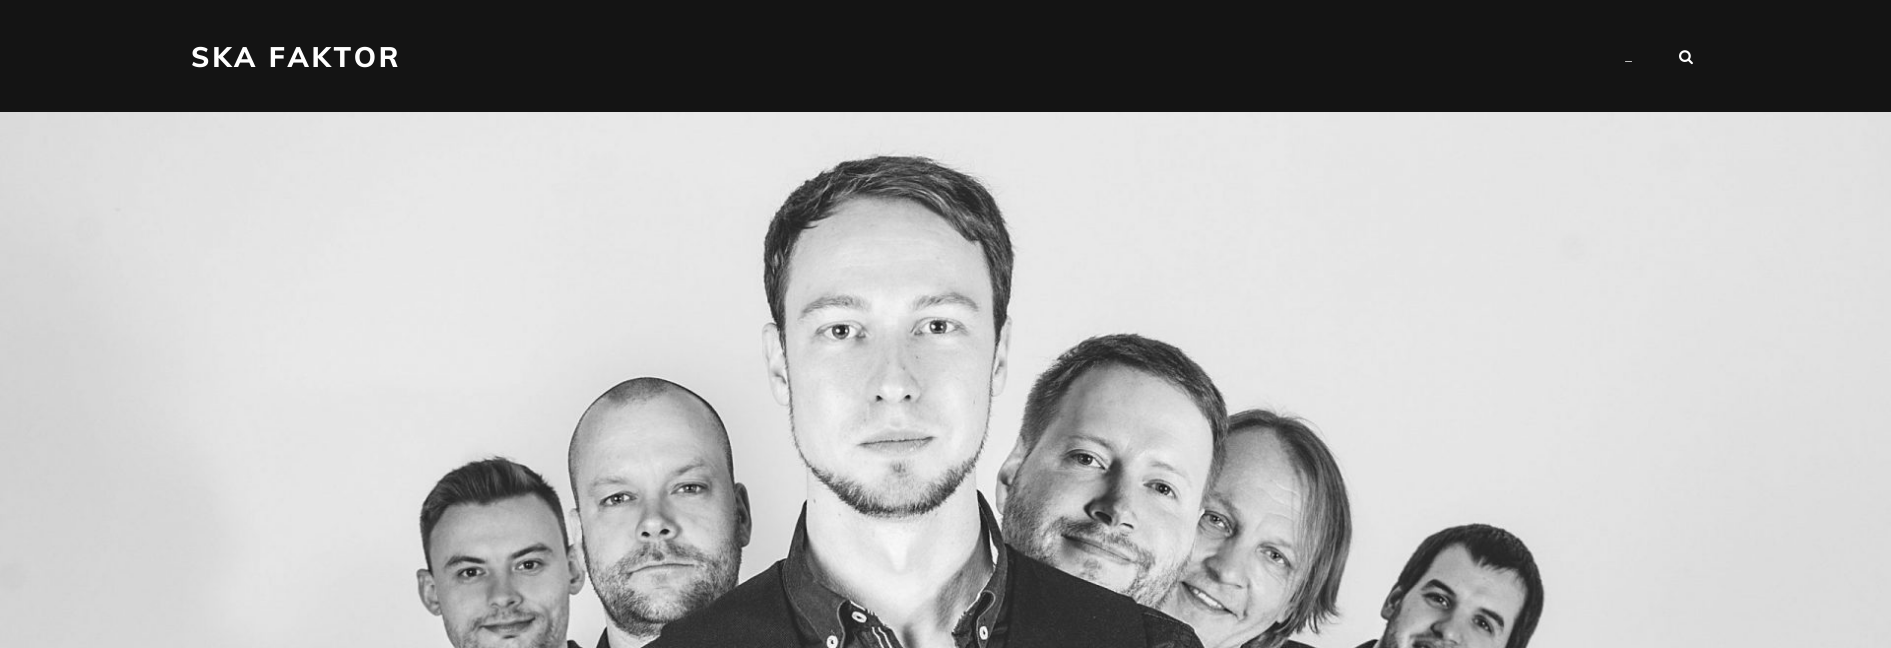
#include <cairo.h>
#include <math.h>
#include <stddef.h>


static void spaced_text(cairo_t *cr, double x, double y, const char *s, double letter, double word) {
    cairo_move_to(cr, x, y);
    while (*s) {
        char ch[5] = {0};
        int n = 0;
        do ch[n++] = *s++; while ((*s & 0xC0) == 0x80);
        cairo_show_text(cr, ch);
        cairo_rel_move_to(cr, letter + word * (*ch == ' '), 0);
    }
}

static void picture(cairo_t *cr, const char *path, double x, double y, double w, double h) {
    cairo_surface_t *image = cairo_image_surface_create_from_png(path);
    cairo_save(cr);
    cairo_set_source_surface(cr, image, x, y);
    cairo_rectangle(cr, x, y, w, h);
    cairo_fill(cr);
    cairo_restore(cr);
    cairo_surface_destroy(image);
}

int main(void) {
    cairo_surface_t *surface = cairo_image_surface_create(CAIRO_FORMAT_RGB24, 1891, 648);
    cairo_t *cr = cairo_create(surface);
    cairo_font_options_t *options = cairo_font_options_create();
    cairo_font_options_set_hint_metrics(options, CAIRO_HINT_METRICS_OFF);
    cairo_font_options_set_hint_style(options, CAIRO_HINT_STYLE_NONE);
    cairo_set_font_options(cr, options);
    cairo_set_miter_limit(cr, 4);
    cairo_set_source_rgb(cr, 0.082, 0.082, 0.082);
    cairo_paint(cr);
    cairo_select_font_face(cr, "Muli ExtraBold", CAIRO_FONT_SLANT_NORMAL, CAIRO_FONT_WEIGHT_NORMAL);
    cairo_set_font_size(cr, 28);
    cairo_set_source_rgb(cr, 1, 1, 1);
    spaced_text(cr, 191, 67, "SKA FAKTOR", 2.75, 0);
    cairo_select_font_face(cr, "Muli", CAIRO_FONT_SLANT_NORMAL, CAIRO_FONT_WEIGHT_NORMAL);
    cairo_set_font_size(cr, 14);
    cairo_move_to(cr, 1625, 61);
    cairo_show_text(cr, "_");
    picture(cr, "img1.png", 1679, 50, 14, 15);
    picture(cr, "img2.png", 0, 112, 1891, 536);
    picture(cr, "img3.png", 415, 158, 1130, 490);
    cairo_surface_write_to_png(surface, "page.png");
    cairo_font_options_destroy(options);
    cairo_destroy(cr);
    cairo_surface_destroy(surface);
    return 0;
}
